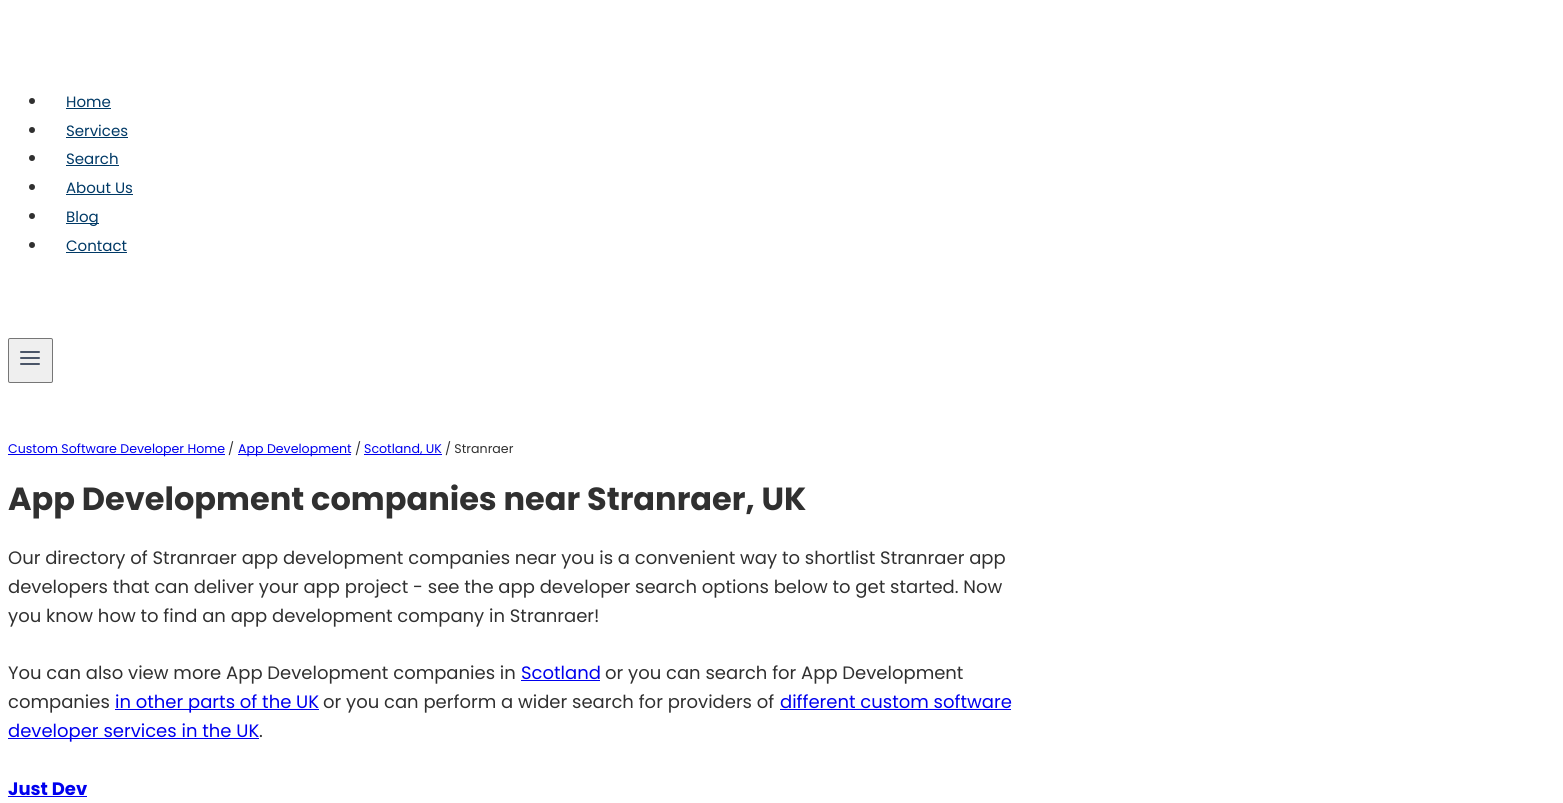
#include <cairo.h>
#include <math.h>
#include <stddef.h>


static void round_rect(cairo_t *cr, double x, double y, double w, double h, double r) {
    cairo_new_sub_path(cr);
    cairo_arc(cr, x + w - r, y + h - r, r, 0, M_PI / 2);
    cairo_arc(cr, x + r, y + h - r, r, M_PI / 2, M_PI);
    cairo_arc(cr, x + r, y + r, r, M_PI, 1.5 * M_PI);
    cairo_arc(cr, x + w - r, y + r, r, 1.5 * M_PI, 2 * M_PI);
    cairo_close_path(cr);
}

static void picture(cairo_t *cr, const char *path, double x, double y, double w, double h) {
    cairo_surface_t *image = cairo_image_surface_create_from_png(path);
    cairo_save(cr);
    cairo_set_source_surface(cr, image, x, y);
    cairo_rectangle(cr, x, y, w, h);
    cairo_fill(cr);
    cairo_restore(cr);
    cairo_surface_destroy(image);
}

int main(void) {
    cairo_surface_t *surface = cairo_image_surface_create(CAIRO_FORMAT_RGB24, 1563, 803);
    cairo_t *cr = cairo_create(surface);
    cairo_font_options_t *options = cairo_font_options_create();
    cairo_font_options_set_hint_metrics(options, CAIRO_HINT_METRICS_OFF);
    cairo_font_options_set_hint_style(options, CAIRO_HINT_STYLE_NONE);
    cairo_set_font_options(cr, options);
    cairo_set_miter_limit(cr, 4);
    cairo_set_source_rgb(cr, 1, 1, 1);
    cairo_paint(cr);
    cairo_set_source_rgb(cr, 0.188, 0.188, 0.188);
    cairo_arc(cr, 32, 101, 3, 0, 2 * M_PI);
    cairo_fill(cr);
    cairo_select_font_face(cr, "Poppins", CAIRO_FONT_SLANT_NORMAL, CAIRO_FONT_WEIGHT_NORMAL);
    cairo_set_font_size(cr, 15);
    cairo_set_source_rgb(cr, 0, 0.224, 0.4);
    cairo_move_to(cr, 66, 107);
    cairo_show_text(cr, "Home");
    cairo_rectangle(cr, 66, 108, 45, 1);
    cairo_fill(cr);
    cairo_set_source_rgb(cr, 0.188, 0.188, 0.188);
    cairo_arc(cr, 32, 130, 3, 0, 2 * M_PI);
    cairo_fill(cr);
    cairo_set_source_rgb(cr, 0, 0.224, 0.4);
    cairo_move_to(cr, 66, 136);
    cairo_show_text(cr, "Services");
    cairo_rectangle(cr, 66, 137, 62, 1);
    cairo_fill(cr);
    cairo_set_source_rgb(cr, 0.188, 0.188, 0.188);
    cairo_arc(cr, 32, 158, 3, 0, 2 * M_PI);
    cairo_fill(cr);
    cairo_set_source_rgb(cr, 0, 0.224, 0.4);
    cairo_move_to(cr, 66, 164);
    cairo_show_text(cr, "Search");
    cairo_rectangle(cr, 66, 165, 53, 1);
    cairo_fill(cr);
    cairo_set_source_rgb(cr, 0.188, 0.188, 0.188);
    cairo_arc(cr, 32, 187, 3, 0, 2 * M_PI);
    cairo_fill(cr);
    cairo_set_source_rgb(cr, 0, 0.224, 0.4);
    cairo_move_to(cr, 66, 193);
    cairo_show_text(cr, "About Us");
    cairo_rectangle(cr, 66, 194, 67, 1);
    cairo_fill(cr);
    cairo_set_source_rgb(cr, 0.188, 0.188, 0.188);
    cairo_arc(cr, 32, 216, 3, 0, 2 * M_PI);
    cairo_fill(cr);
    cairo_set_source_rgb(cr, 0, 0.224, 0.4);
    cairo_rectangle(cr, 66, 223, 33, 1);
    cairo_fill(cr);
    cairo_move_to(cr, 66, 222);
    cairo_show_text(cr, "Blog");
    cairo_set_source_rgb(cr, 0.188, 0.188, 0.188);
    cairo_new_path(cr);
    cairo_arc(cr, 32, 245, 3, 0, 2 * M_PI);
    cairo_fill(cr);
    cairo_set_source_rgb(cr, 0, 0.224, 0.4);
    cairo_move_to(cr, 66, 251);
    cairo_show_text(cr, "Contact");
    cairo_rectangle(cr, 66, 252, 61, 1);
    cairo_fill(cr);
    cairo_set_source_rgb(cr, 0.937, 0.937, 0.937);
    round_rect(cr, 8.5, 338.5, 44, 44, 1.5);
    cairo_fill_preserve(cr);
    cairo_set_source_rgb(cr, 0.463, 0.463, 0.463);
    cairo_set_line_width(cr, 1);
    cairo_stroke(cr);
    picture(cr, "img1.png", 20, 351, 20, 14);
    cairo_set_source_rgb(cr, 0, 0, 0.933);
    cairo_rectangle(cr, 8, 454, 217, 1);
    cairo_fill(cr);
    cairo_set_font_size(cr, 12.6);
    cairo_move_to(cr, 8, 453);
    cairo_show_text(cr, "Custom Software Developer Home");
    cairo_set_source_rgb(cr, 0.188, 0.188, 0.188);
    cairo_move_to(cr, 228, 453);
    cairo_show_text(cr, "/");
    cairo_set_source_rgb(cr, 0, 0, 0.933);
    cairo_rectangle(cr, 238, 454, 113, 1);
    cairo_fill(cr);
    cairo_move_to(cr, 238, 453);
    cairo_show_text(cr, "App Development");
    cairo_set_source_rgb(cr, 0.188, 0.188, 0.188);
    cairo_move_to(cr, 355, 453);
    cairo_show_text(cr, "/");
    cairo_set_source_rgb(cr, 0, 0, 0.933);
    cairo_rectangle(cr, 364, 454, 78, 1);
    cairo_fill(cr);
    cairo_move_to(cr, 364, 453);
    cairo_show_text(cr, "Scotland, UK");
    cairo_set_source_rgb(cr, 0.188, 0.188, 0.188);
    cairo_move_to(cr, 445, 453);
    cairo_show_text(cr, "/ Stranraer");
    cairo_select_font_face(cr, "Poppins", CAIRO_FONT_SLANT_NORMAL, CAIRO_FONT_WEIGHT_BOLD);
    cairo_set_font_size(cr, 32);
    cairo_move_to(cr, 8, 510);
    cairo_show_text(cr, "App Development companies near Stranraer, UK");
    cairo_select_font_face(cr, "Poppins", CAIRO_FONT_SLANT_NORMAL, CAIRO_FONT_WEIGHT_NORMAL);
    cairo_set_font_size(cr, 18);
    cairo_move_to(cr, 8, 564);
    cairo_show_text(cr, "Our directory of Stranraer app development companies near you is a convenient way to shortlist Stranraer app");
    cairo_move_to(cr, 8, 593);
    cairo_show_text(cr, "developers that can deliver your app project - see the app developer search options below to get started. Now");
    cairo_move_to(cr, 8, 622);
    cairo_show_text(cr, "you know how to find an app development company in Stranraer!");
    cairo_move_to(cr, 8, 679);
    cairo_show_text(cr, "You can also view more App Development companies in");
    cairo_set_source_rgb(cr, 0, 0, 0.933);
    cairo_move_to(cr, 521, 679);
    cairo_show_text(cr, "Scotland");
    cairo_rectangle(cr, 521, 680, 79, 1);
    cairo_fill(cr);
    cairo_set_source_rgb(cr, 0.188, 0.188, 0.188);
    cairo_move_to(cr, 605, 679);
    cairo_show_text(cr, "or you can search for App Development");
    cairo_move_to(cr, 8, 708);
    cairo_show_text(cr, "companies");
    cairo_set_source_rgb(cr, 0, 0, 0.933);
    cairo_rectangle(cr, 115, 709, 204, 1);
    cairo_fill(cr);
    cairo_move_to(cr, 115, 708);
    cairo_show_text(cr, "in other parts of the UK");
    cairo_set_source_rgb(cr, 0.188, 0.188, 0.188);
    cairo_move_to(cr, 323, 708);
    cairo_show_text(cr, "or you can perform a wider search for providers of");
    cairo_set_source_rgb(cr, 0, 0, 0.933);
    cairo_move_to(cr, 780, 708);
    cairo_show_text(cr, "different custom software");
    cairo_rectangle(cr, 780, 709, 231, 1);
    cairo_fill(cr);
    cairo_rectangle(cr, 8, 738, 251, 1);
    cairo_fill(cr);
    cairo_move_to(cr, 8, 737);
    cairo_show_text(cr, "developer services in the UK");
    cairo_set_source_rgb(cr, 0.188, 0.188, 0.188);
    cairo_move_to(cr, 259, 737);
    cairo_show_text(cr, ".");
    cairo_select_font_face(cr, "Poppins", CAIRO_FONT_SLANT_NORMAL, CAIRO_FONT_WEIGHT_BOLD);
    cairo_set_source_rgb(cr, 0, 0, 0.933);
    cairo_move_to(cr, 8, 795);
    cairo_show_text(cr, "Just Dev");
    cairo_rectangle(cr, 8, 796, 79, 1);
    cairo_fill(cr);
    cairo_surface_write_to_png(surface, "page.png");
    cairo_font_options_destroy(options);
    cairo_destroy(cr);
    cairo_surface_destroy(surface);
    return 0;
}
